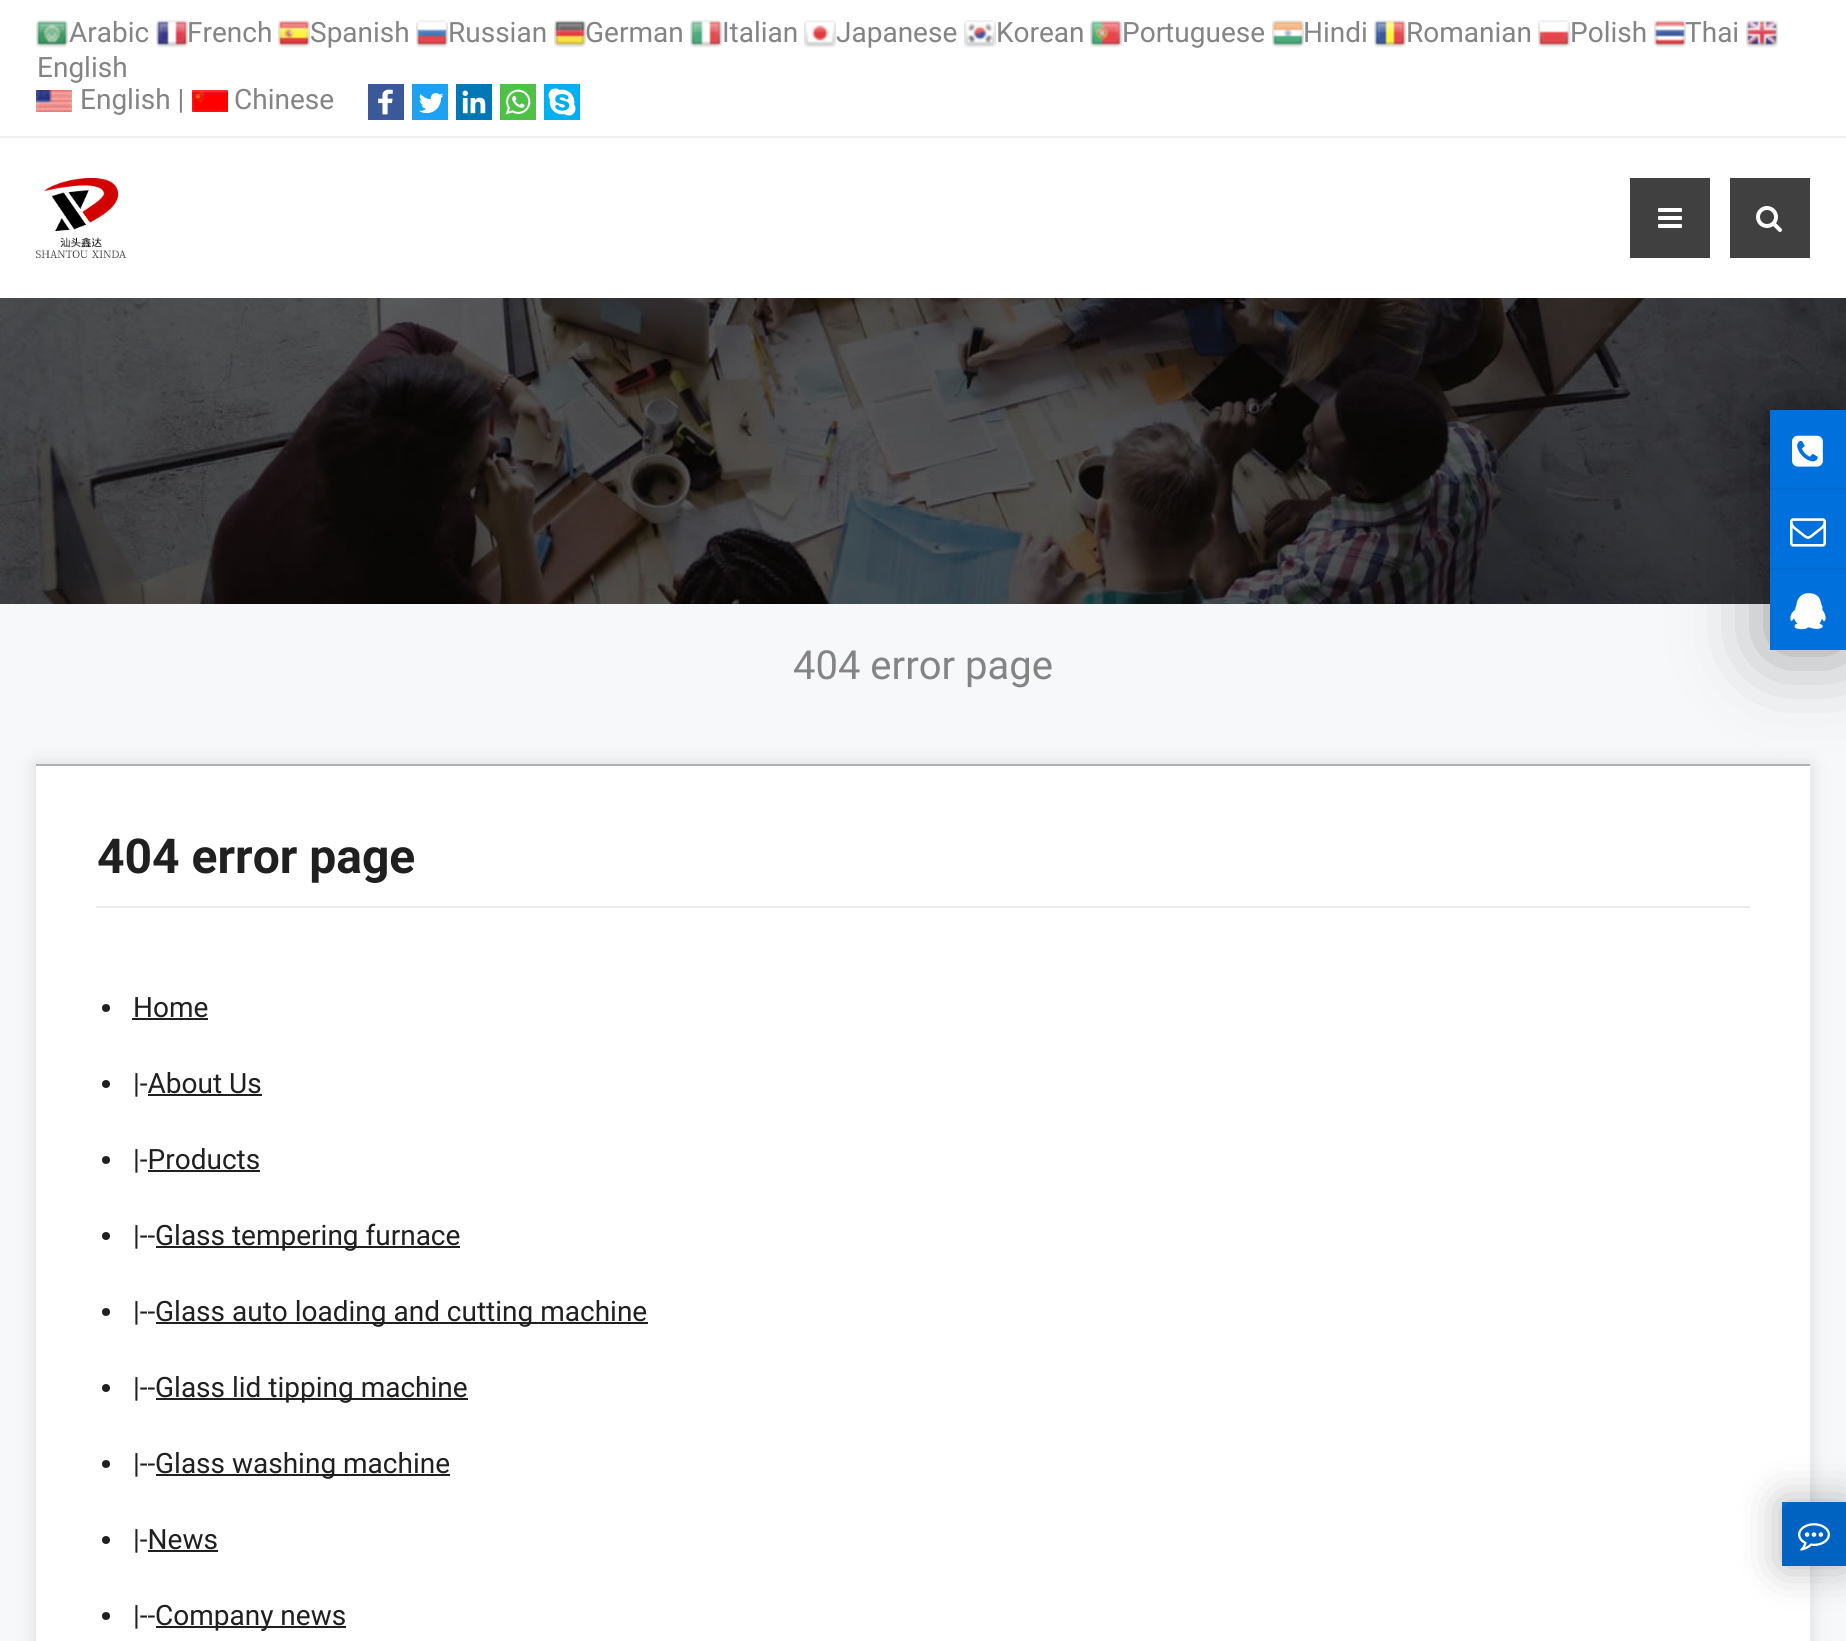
#include <cairo.h>
#include <math.h>
#include <stddef.h>


static void round_rect(cairo_t *cr, double x, double y, double w, double h, double r) {
    cairo_new_sub_path(cr);
    cairo_arc(cr, x + w - r, y + h - r, r, 0, M_PI / 2);
    cairo_arc(cr, x + r, y + h - r, r, M_PI / 2, M_PI);
    cairo_arc(cr, x + r, y + r, r, M_PI, 1.5 * M_PI);
    cairo_arc(cr, x + w - r, y + r, r, 1.5 * M_PI, 2 * M_PI);
    cairo_close_path(cr);
}

static void shadow(cairo_t *cr, double x, double y, double w, double h, double r, double blur, double alpha) {
    cairo_push_group_with_content(cr, CAIRO_CONTENT_ALPHA);
    cairo_set_operator(cr, CAIRO_OPERATOR_SOURCE);
    for (int i = 15; i >= -15 && fmin(w, h) + blur * i / 3 > 0; i -= 2) {
        double e = blur * i / 6;
        cairo_set_source_rgba(cr, 0, 0, 0, alpha * erfc((i - 1) / 8.5) / 2);
        round_rect(cr, x - e, y - e, w + 2 * e, h + 2 * e, fmax(0, fmin(r + e + blur * .6, fmin(w, h) / 2 + e)));
        cairo_fill(cr);
    }
    cairo_pattern_t *soft = cairo_pop_group(cr);
    cairo_mask(cr, soft);
    cairo_pattern_destroy(soft);
}

static void picture(cairo_t *cr, const char *path, double x, double y, double w, double h) {
    cairo_surface_t *image = cairo_image_surface_create_from_png(path);
    cairo_save(cr);
    cairo_set_source_surface(cr, image, x, y);
    cairo_rectangle(cr, x, y, w, h);
    cairo_fill(cr);
    cairo_restore(cr);
    cairo_surface_destroy(image);
}

int main(void) {
    cairo_surface_t *surface = cairo_image_surface_create(CAIRO_FORMAT_RGB24, 1846, 1641);
    cairo_t *cr = cairo_create(surface);
    cairo_font_options_t *options = cairo_font_options_create();
    cairo_font_options_set_hint_metrics(options, CAIRO_HINT_METRICS_OFF);
    cairo_font_options_set_hint_style(options, CAIRO_HINT_STYLE_NONE);
    cairo_set_font_options(cr, options);
    cairo_set_miter_limit(cr, 4);
    cairo_set_source_rgb(cr, 0.961, 0.969, 0.98);
    cairo_paint(cr);
    cairo_set_source_rgb(cr, 1, 1, 1);
    cairo_rectangle(cr, 0, 0, 1846, 136);
    cairo_fill(cr);
    cairo_set_source_rgb(cr, 0.941, 0.941, 0.941);
    cairo_rectangle(cr, 0, 136, 1846, 2);
    cairo_fill(cr);
    picture(cr, "img1.png", 36, 20, 32, 28);
    cairo_select_font_face(cr, "Roboto", CAIRO_FONT_SLANT_NORMAL, CAIRO_FONT_WEIGHT_NORMAL);
    cairo_set_font_size(cr, 28);
    cairo_set_source_rgb(cr, 0.518, 0.518, 0.518);
    cairo_move_to(cr, 69, 42);
    cairo_show_text(cr, "Arabic");
    picture(cr, "img2.png", 156, 20, 32, 28);
    cairo_move_to(cr, 187, 42);
    cairo_show_text(cr, "French");
    picture(cr, "img3.png", 278, 20, 32, 28);
    cairo_move_to(cr, 310, 42);
    cairo_show_text(cr, "Spanish");
    picture(cr, "img4.png", 416, 20, 32, 28);
    cairo_move_to(cr, 448, 42);
    cairo_show_text(cr, "Russian");
    picture(cr, "img5.png", 554, 20, 32, 28);
    cairo_move_to(cr, 585, 42);
    cairo_show_text(cr, "German");
    picture(cr, "img6.png", 690, 20, 32, 28);
    cairo_move_to(cr, 722, 42);
    cairo_show_text(cr, "Italian");
    picture(cr, "img7.png", 804, 20, 32, 28);
    cairo_move_to(cr, 836, 42);
    cairo_show_text(cr, "Japanese");
    picture(cr, "img8.png", 964, 20, 32, 28);
    cairo_move_to(cr, 996, 42);
    cairo_show_text(cr, "Korean");
    picture(cr, "img9.png", 1090, 20, 32, 28);
    cairo_move_to(cr, 1122, 42);
    cairo_show_text(cr, "Portuguese");
    picture(cr, "img10.png", 1272, 20, 32, 28);
    cairo_move_to(cr, 1303, 42);
    cairo_show_text(cr, "Hindi");
    picture(cr, "img11.png", 1374, 20, 32, 28);
    cairo_move_to(cr, 1406, 42);
    cairo_show_text(cr, "Romanian");
    picture(cr, "img12.png", 1538, 20, 32, 28);
    cairo_move_to(cr, 1570, 42);
    cairo_show_text(cr, "Polish");
    cairo_move_to(cr, 1685, 42);
    cairo_show_text(cr, "Thai");
    picture(cr, "img13.png", 1654, 20, 32, 28);
    picture(cr, "img14.png", 1746, 20, 32, 28);
    cairo_move_to(cr, 37, 77);
    cairo_show_text(cr, "English");
    picture(cr, "img15.png", 36, 90, 36, 22);
    cairo_move_to(cr, 80, 109);
    cairo_show_text(cr, "English |");
    picture(cr, "img16.png", 192, 90, 36, 22);
    cairo_move_to(cr, 234, 109);
    cairo_show_text(cr, "Chinese");
    cairo_set_source_rgb(cr, 0.231, 0.349, 0.596);
    cairo_rectangle(cr, 368, 84, 36, 36);
    cairo_fill(cr);
    picture(cr, "img17.png", 378, 89, 15, 26);
    cairo_set_source_rgb(cr, 0.114, 0.631, 0.949);
    cairo_rectangle(cr, 412, 84, 36, 36);
    cairo_fill(cr);
    picture(cr, "img18.png", 419, 93, 25, 21);
    cairo_set_source_rgb(cr, 0, 0.467, 0.71);
    cairo_rectangle(cr, 456, 84, 36, 36);
    cairo_fill(cr);
    picture(cr, "img19.png", 462, 90, 24, 24);
    cairo_set_source_rgb(cr, 0.302, 0.761, 0.278);
    cairo_rectangle(cr, 500, 84, 36, 36);
    cairo_fill(cr);
    picture(cr, "img20.png", 505, 89, 26, 26);
    cairo_set_source_rgb(cr, 0, 0.686, 0.941);
    cairo_rectangle(cr, 544, 84, 36, 36);
    cairo_fill(cr);
    picture(cr, "img21.png", 548, 88, 28, 28);
    cairo_set_source_rgb(cr, 1, 1, 1);
    cairo_rectangle(cr, 0, 138, 1846, 160);
    cairo_fill(cr);
    picture(cr, "img22.png", 36, 178, 90, 80);
    cairo_set_source_rgb(cr, 0.251, 0.251, 0.251);
    cairo_rectangle(cr, 1630, 178, 80, 80);
    cairo_fill(cr);
    picture(cr, "img23.png", 1658, 208, 24, 20);
    cairo_rectangle(cr, 1730, 178, 80, 80);
    cairo_fill(cr);
    picture(cr, "img24.png", 1756, 206, 26, 26);
    picture(cr, "img25.png", 0, 298, 1846, 306);
    cairo_set_font_size(cr, 40);
    cairo_set_source_rgb(cr, 0.518, 0.518, 0.518);
    cairo_move_to(cr, 793, 679);
    cairo_show_text(cr, "404 error page");
    cairo_set_source_rgb(cr, 0, 0, 0);
    shadow(cr, 36, 764, 1774, 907, 0, 10, 0.12);
    cairo_set_source_rgb(cr, 1, 1, 1);
    cairo_rectangle(cr, 36, 766, 1774, 875);
    cairo_fill(cr);
    cairo_set_source_rgb(cr, 0.694, 0.694, 0.694);
    cairo_rectangle(cr, 36, 764, 1774, 2);
    cairo_fill(cr);
    cairo_set_source_rgb(cr, 0.922, 0.922, 0.922);
    cairo_rectangle(cr, 96, 906, 1654, 2);
    cairo_fill(cr);
    cairo_select_font_face(cr, "Roboto", CAIRO_FONT_SLANT_NORMAL, CAIRO_FONT_WEIGHT_BOLD);
    cairo_set_font_size(cr, 48);
    cairo_set_source_rgb(cr, 0.125, 0.125, 0.125);
    cairo_move_to(cr, 97, 873);
    cairo_show_text(cr, "404 error page");
    cairo_new_path(cr);
    cairo_arc(cr, 106, 1008, 4, 0, 2 * M_PI);
    cairo_fill(cr);
    cairo_select_font_face(cr, "Roboto", CAIRO_FONT_SLANT_NORMAL, CAIRO_FONT_WEIGHT_NORMAL);
    cairo_set_font_size(cr, 28);
    cairo_move_to(cr, 133, 1017);
    cairo_show_text(cr, "Home");
    cairo_rectangle(cr, 132, 1018, 76, 2);
    cairo_fill(cr);
    cairo_arc(cr, 106, 1084, 4, 0, 2 * M_PI);
    cairo_fill(cr);
    cairo_move_to(cr, 133, 1093);
    cairo_show_text(cr, "|-About Us");
    cairo_rectangle(cr, 148, 1094, 114, 2);
    cairo_fill(cr);
    cairo_arc(cr, 106, 1160, 4, 0, 2 * M_PI);
    cairo_fill(cr);
    cairo_move_to(cr, 133, 1169);
    cairo_show_text(cr, "|-Products");
    cairo_rectangle(cr, 148, 1170, 112, 2);
    cairo_fill(cr);
    cairo_arc(cr, 106, 1236, 4, 0, 2 * M_PI);
    cairo_fill(cr);
    cairo_move_to(cr, 133, 1245);
    cairo_show_text(cr, "|--");
    cairo_rectangle(cr, 156, 1246, 304, 2);
    cairo_fill(cr);
    cairo_move_to(cr, 155, 1245);
    cairo_show_text(cr, "Glass tempering furnace");
    cairo_new_path(cr);
    cairo_arc(cr, 106, 1312, 4, 0, 2 * M_PI);
    cairo_fill(cr);
    cairo_move_to(cr, 133, 1321);
    cairo_show_text(cr, "|--");
    cairo_rectangle(cr, 156, 1322, 492, 2);
    cairo_fill(cr);
    cairo_move_to(cr, 155, 1321);
    cairo_show_text(cr, "Glass auto loading and cutting machine");
    cairo_new_path(cr);
    cairo_arc(cr, 106, 1388, 4, 0, 2 * M_PI);
    cairo_fill(cr);
    cairo_move_to(cr, 133, 1397);
    cairo_show_text(cr, "|--");
    cairo_rectangle(cr, 156, 1398, 312, 2);
    cairo_fill(cr);
    cairo_move_to(cr, 155, 1397);
    cairo_show_text(cr, "Glass lid tipping machine");
    cairo_new_path(cr);
    cairo_arc(cr, 106, 1464, 4, 0, 2 * M_PI);
    cairo_fill(cr);
    cairo_move_to(cr, 133, 1473);
    cairo_show_text(cr, "|--");
    cairo_rectangle(cr, 156, 1474, 294, 2);
    cairo_fill(cr);
    cairo_move_to(cr, 155, 1473);
    cairo_show_text(cr, "Glass washing machine");
    cairo_new_path(cr);
    cairo_arc(cr, 106, 1540, 4, 0, 2 * M_PI);
    cairo_fill(cr);
    cairo_move_to(cr, 133, 1549);
    cairo_show_text(cr, "|-News");
    cairo_rectangle(cr, 148, 1550, 70, 2);
    cairo_fill(cr);
    cairo_arc(cr, 106, 1616, 4, 0, 2 * M_PI);
    cairo_fill(cr);
    cairo_move_to(cr, 133, 1625);
    cairo_show_text(cr, "|--");
    cairo_rectangle(cr, 156, 1626, 190, 2);
    cairo_fill(cr);
    cairo_move_to(cr, 155, 1625);
    cairo_show_text(cr, "Company news");
    cairo_set_source_rgb(cr, 0, 0, 0);
    shadow(cr, 1770, 410, 76, 240, 0, 42, 0.4);
    cairo_set_source_rgb(cr, 0, 0.443, 0.863);
    cairo_rectangle(cr, 1770, 410, 76, 240);
    cairo_fill(cr);
    cairo_set_source_rgb(cr, 0, 0.42, 0.82);
    cairo_rectangle(cr, 1770, 488, 76, 2);
    cairo_fill(cr);
    picture(cr, "img26.png", 1792, 435, 31, 32);
    cairo_rectangle(cr, 1770, 568, 76, 2);
    cairo_fill(cr);
    picture(cr, "img27.png", 1790, 518, 36, 29);
    picture(cr, "img28.png", 1790, 593, 36, 37);
    cairo_set_source_rgb(cr, 0, 0, 0);
    shadow(cr, 1782, 1502, 64, 64, 0, 21, 0.3);
    cairo_set_source_rgb(cr, 0, 0.443, 0.863);
    cairo_rectangle(cr, 1782, 1502, 10, 10);
    cairo_fill(cr);
    cairo_set_source_rgb(cr, 0, 0.388, 0.761);
    cairo_new_path(cr);
    cairo_move_to(cr, 1792, 1502);
    cairo_line_to(cr, 1846, 1502);
    cairo_line_to(cr, 1846, 1566);
    cairo_line_to(cr, 1782, 1566);
    cairo_line_to(cr, 1782, 1512);
    cairo_curve_to(cr, 1782, 1506.5, 1786.5, 1502, 1792, 1502);
    cairo_close_path(cr);
    cairo_fill(cr);
    picture(cr, "img29.png", 1798, 1523, 32, 28);
    cairo_surface_write_to_png(surface, "page.png");
    cairo_font_options_destroy(options);
    cairo_destroy(cr);
    cairo_surface_destroy(surface);
    return 0;
}
